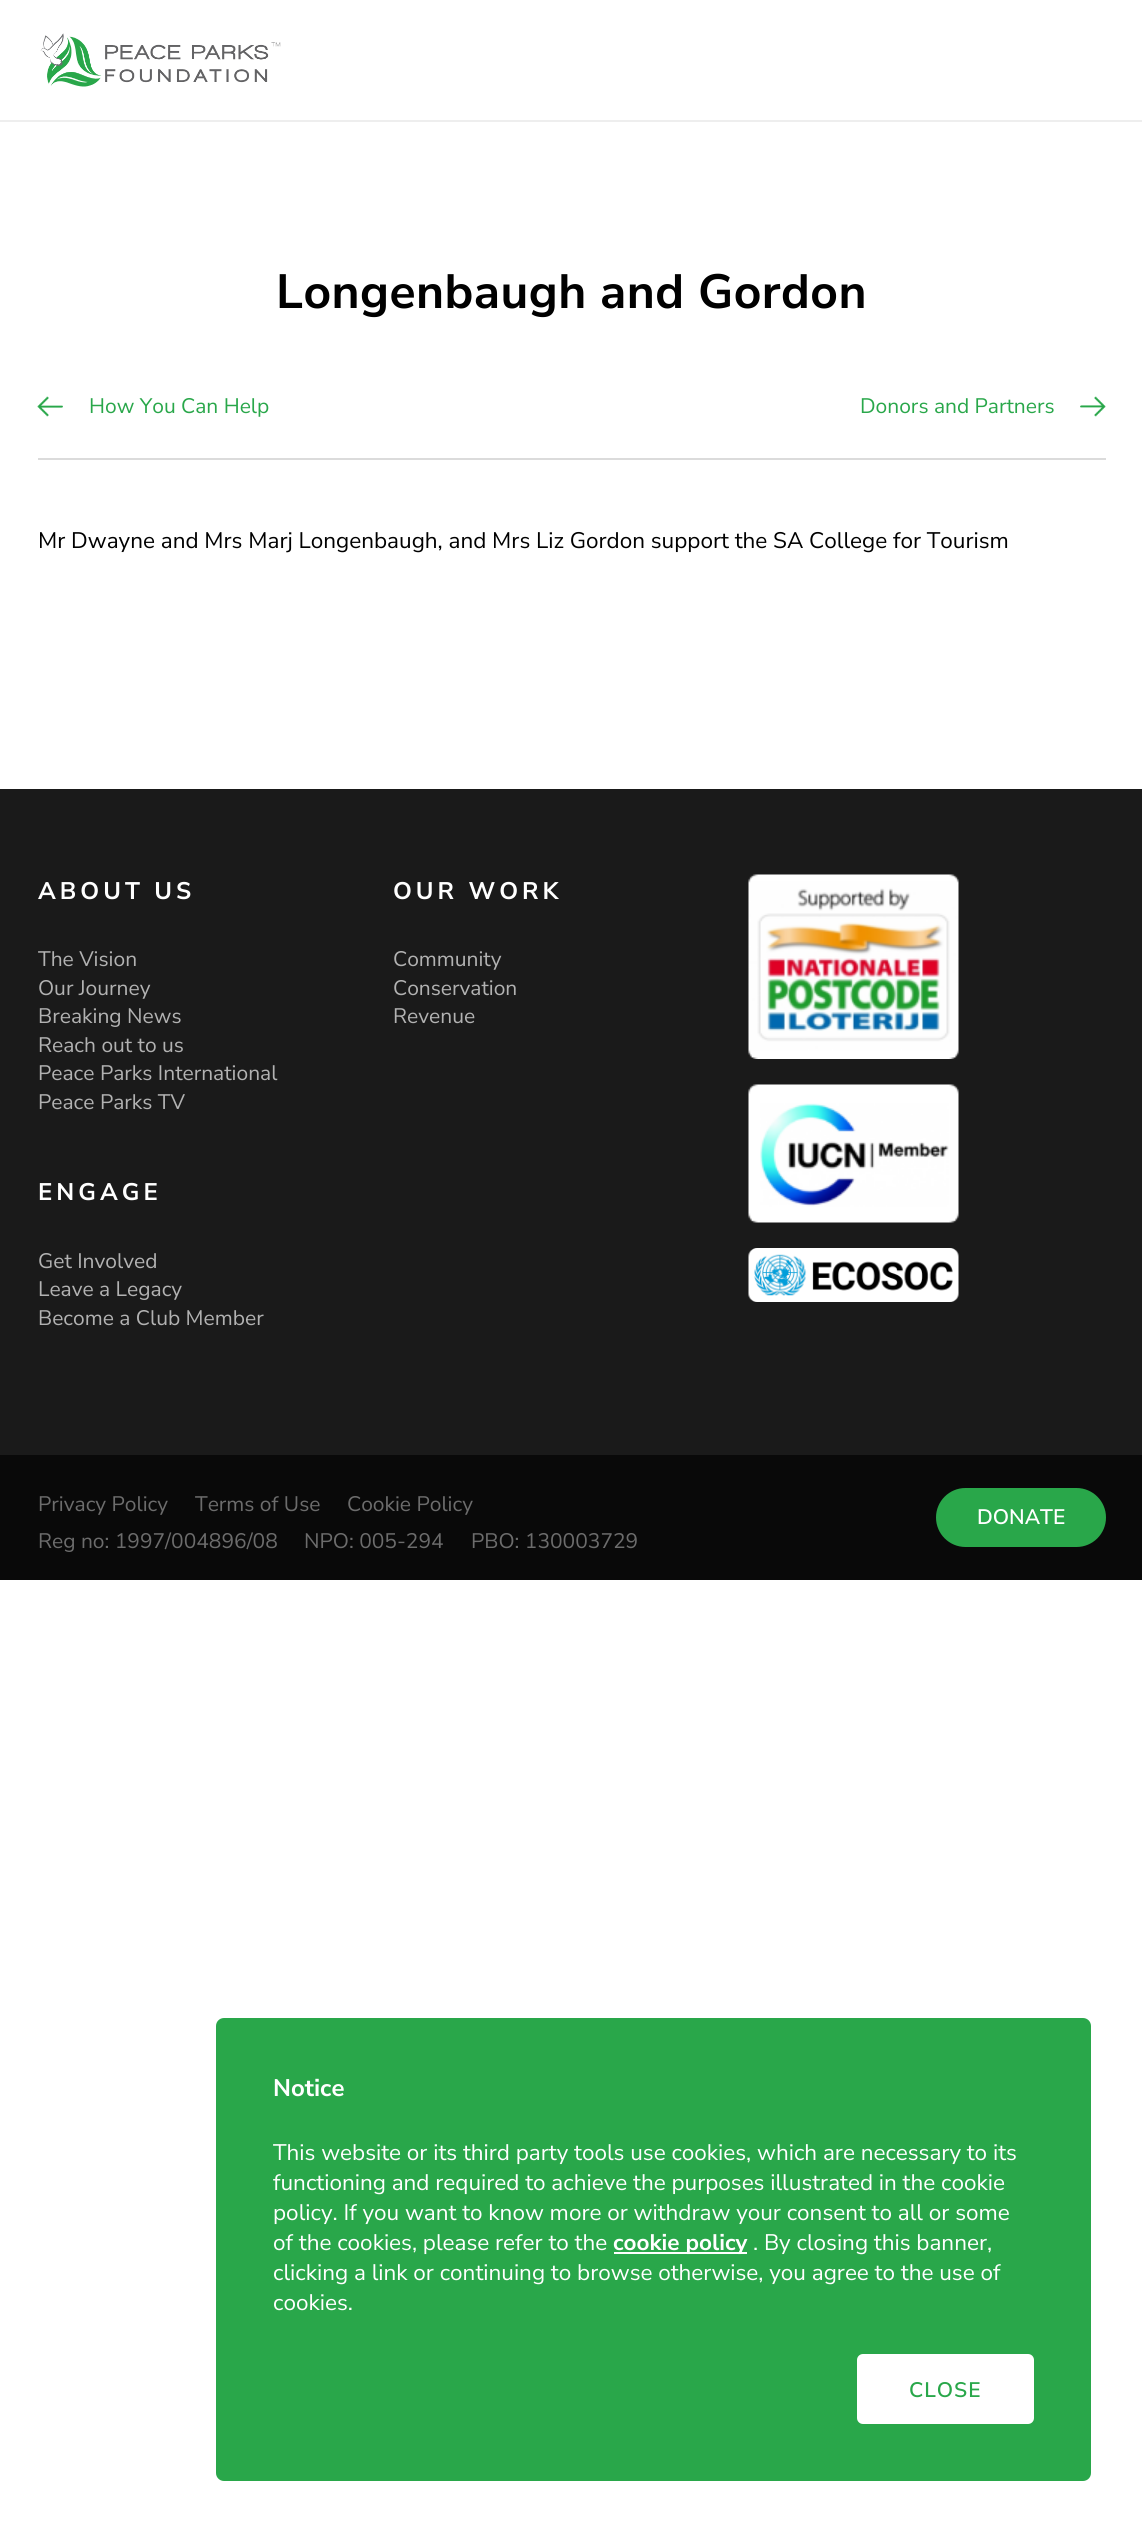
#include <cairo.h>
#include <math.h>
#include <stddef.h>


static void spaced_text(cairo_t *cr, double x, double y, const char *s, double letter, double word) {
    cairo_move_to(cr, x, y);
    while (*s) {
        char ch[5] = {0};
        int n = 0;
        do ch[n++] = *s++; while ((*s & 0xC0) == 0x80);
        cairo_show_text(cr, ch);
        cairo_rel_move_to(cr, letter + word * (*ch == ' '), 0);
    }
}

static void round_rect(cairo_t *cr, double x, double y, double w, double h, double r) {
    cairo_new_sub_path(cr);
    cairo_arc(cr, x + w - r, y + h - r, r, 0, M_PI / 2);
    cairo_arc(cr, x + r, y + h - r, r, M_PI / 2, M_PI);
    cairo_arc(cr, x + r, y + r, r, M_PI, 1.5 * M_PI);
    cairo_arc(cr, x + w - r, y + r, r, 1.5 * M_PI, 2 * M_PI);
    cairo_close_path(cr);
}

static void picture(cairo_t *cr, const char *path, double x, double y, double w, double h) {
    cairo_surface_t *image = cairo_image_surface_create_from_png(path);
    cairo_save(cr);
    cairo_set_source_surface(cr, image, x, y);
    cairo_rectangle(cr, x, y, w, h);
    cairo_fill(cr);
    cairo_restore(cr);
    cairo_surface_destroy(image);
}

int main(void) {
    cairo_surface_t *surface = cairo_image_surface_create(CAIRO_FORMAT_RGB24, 1142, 2533);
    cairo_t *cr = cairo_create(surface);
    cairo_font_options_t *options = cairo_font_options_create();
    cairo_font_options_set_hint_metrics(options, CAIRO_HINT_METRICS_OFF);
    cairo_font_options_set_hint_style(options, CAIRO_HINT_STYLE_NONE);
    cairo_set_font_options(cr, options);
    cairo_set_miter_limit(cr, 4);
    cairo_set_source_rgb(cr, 1, 1, 1);
    cairo_paint(cr);
    cairo_set_source_rgb(cr, 0.933, 0.933, 0.933);
    cairo_rectangle(cr, 0, 120, 1142, 2);
    cairo_fill(cr);
    picture(cr, "img1.png", 40, 33, 241, 54);
    cairo_select_font_face(cr, "Nunito Sans", CAIRO_FONT_SLANT_NORMAL, CAIRO_FONT_WEIGHT_BOLD);
    cairo_set_font_size(cr, 48);
    cairo_set_source_rgb(cr, 0, 0, 0);
    spaced_text(cr, 276, 308, "Longenbaugh and Gordon", 0.45, 0);
    cairo_set_source_rgb(cr, 0.859, 0.859, 0.859);
    cairo_rectangle(cr, 38, 458, 1068, 2);
    cairo_fill(cr);
    picture(cr, "img2.png", 37, 396, 26, 21);
    cairo_select_font_face(cr, "Nunito Sans", CAIRO_FONT_SLANT_NORMAL, CAIRO_FONT_WEIGHT_NORMAL);
    cairo_set_font_size(cr, 21);
    cairo_set_source_rgb(cr, 0.161, 0.655, 0.29);
    cairo_move_to(cr, 89, 413);
    cairo_show_text(cr, "How You Can Help");
    cairo_move_to(cr, 860, 413);
    cairo_show_text(cr, "Donors and Partners");
    picture(cr, "img3.png", 1080, 396, 26, 21);
    cairo_set_font_size(cr, 22.5);
    cairo_set_source_rgb(cr, 0, 0, 0);
    cairo_move_to(cr, 38, 548);
    cairo_show_text(cr, "Mr Dwayne and Mrs Marj Longenbaugh, and Mrs Liz Gordon support the SA College for Tourism");
    cairo_set_source_rgb(cr, 0.102, 0.102, 0.102);
    cairo_rectangle(cr, 0, 789, 1142, 666);
    cairo_fill(cr);
    cairo_select_font_face(cr, "Nunito Sans", CAIRO_FONT_SLANT_NORMAL, CAIRO_FONT_WEIGHT_BOLD);
    cairo_set_font_size(cr, 24);
    cairo_set_source_rgb(cr, 1, 1, 1);
    spaced_text(cr, 38, 899, "ABOUT US", 4, 0);
    cairo_select_font_face(cr, "Nunito Sans", CAIRO_FONT_SLANT_NORMAL, CAIRO_FONT_WEIGHT_NORMAL);
    cairo_set_font_size(cr, 21);
    cairo_set_source_rgb(cr, 0.698, 0.698, 0.698);
    cairo_move_to(cr, 38, 966);
    cairo_show_text(cr, "The Vision");
    cairo_move_to(cr, 38, 995);
    cairo_show_text(cr, "Our Journey");
    cairo_move_to(cr, 38, 1023);
    cairo_show_text(cr, "Breaking News");
    cairo_move_to(cr, 38, 1052);
    cairo_show_text(cr, "Reach out to us");
    cairo_move_to(cr, 38, 1080);
    cairo_show_text(cr, "Peace Parks International");
    cairo_move_to(cr, 38, 1109);
    cairo_show_text(cr, "Peace Parks TV");
    cairo_select_font_face(cr, "Nunito Sans", CAIRO_FONT_SLANT_NORMAL, CAIRO_FONT_WEIGHT_BOLD);
    cairo_set_font_size(cr, 24);
    cairo_set_source_rgb(cr, 1, 1, 1);
    spaced_text(cr, 38, 1200, "ENGAGE", 4, 0);
    cairo_select_font_face(cr, "Nunito Sans", CAIRO_FONT_SLANT_NORMAL, CAIRO_FONT_WEIGHT_NORMAL);
    cairo_set_font_size(cr, 21);
    cairo_set_source_rgb(cr, 0.698, 0.698, 0.698);
    cairo_move_to(cr, 38, 1268);
    cairo_show_text(cr, "Get Involved");
    cairo_move_to(cr, 38, 1296);
    cairo_show_text(cr, "Leave a Legacy");
    cairo_move_to(cr, 38, 1325);
    cairo_show_text(cr, "Become a Club Member");
    cairo_select_font_face(cr, "Nunito Sans", CAIRO_FONT_SLANT_NORMAL, CAIRO_FONT_WEIGHT_BOLD);
    cairo_set_font_size(cr, 24);
    cairo_set_source_rgb(cr, 1, 1, 1);
    spaced_text(cr, 393, 899, "OUR WORK", 4, 0);
    cairo_select_font_face(cr, "Nunito Sans", CAIRO_FONT_SLANT_NORMAL, CAIRO_FONT_WEIGHT_NORMAL);
    cairo_set_font_size(cr, 21);
    cairo_set_source_rgb(cr, 0.698, 0.698, 0.698);
    cairo_move_to(cr, 393, 966);
    cairo_show_text(cr, "Community");
    cairo_move_to(cr, 393, 995);
    cairo_show_text(cr, "Conservation");
    cairo_move_to(cr, 393, 1023);
    cairo_show_text(cr, "Revenue");
    picture(cr, "img4.png", 748, 874, 211, 185);
    picture(cr, "img5.png", 748, 1084, 211, 139);
    picture(cr, "img6.png", 748, 1248, 211, 54);
    cairo_set_source_rgb(cr, 0.039, 0.039, 0.039);
    cairo_rectangle(cr, 0, 1455, 1142, 125);
    cairo_fill(cr);
    cairo_set_source_rgb(cr, 0.424, 0.424, 0.424);
    cairo_move_to(cr, 38, 1511);
    cairo_show_text(cr, "Privacy Policy");
    cairo_move_to(cr, 195, 1511);
    cairo_show_text(cr, "Terms of Use");
    cairo_move_to(cr, 347, 1511);
    cairo_show_text(cr, "Cookie Policy");
    cairo_move_to(cr, 38, 1548);
    cairo_show_text(cr, "Reg no: 1997/004896/08");
    cairo_move_to(cr, 304, 1548);
    cairo_show_text(cr, "NPO: 005-294");
    cairo_move_to(cr, 471, 1548);
    cairo_show_text(cr, "PBO: 130003729");
    cairo_set_source_rgb(cr, 0.161, 0.655, 0.29);
    round_rect(cr, 936, 1488, 170, 59, 29.5);
    cairo_fill(cr);
    cairo_select_font_face(cr, "Nunito Sans SemiBold", CAIRO_FONT_SLANT_NORMAL, CAIRO_FONT_WEIGHT_NORMAL);
    cairo_set_source_rgb(cr, 1, 1, 1);
    cairo_move_to(cr, 977, 1524);
    cairo_show_text(cr, "DONATE");
    cairo_set_source_rgb(cr, 0.161, 0.655, 0.29);
    round_rect(cr, 216, 2018, 875, 463, 8);
    cairo_fill(cr);
    cairo_select_font_face(cr, "Nunito Sans", CAIRO_FONT_SLANT_NORMAL, CAIRO_FONT_WEIGHT_BOLD);
    cairo_set_font_size(cr, 24);
    cairo_set_source_rgb(cr, 1, 1, 1);
    cairo_move_to(cr, 273, 2096);
    cairo_show_text(cr, "Notice");
    cairo_select_font_face(cr, "Nunito Sans", CAIRO_FONT_SLANT_NORMAL, CAIRO_FONT_WEIGHT_NORMAL);
    cairo_set_font_size(cr, 22.5);
    cairo_move_to(cr, 273, 2160);
    cairo_show_text(cr, "This website or its third party tools use cookies, which are necessary to its");
    cairo_move_to(cr, 273, 2190);
    cairo_show_text(cr, "functioning and required to achieve the purposes illustrated in the cookie");
    cairo_move_to(cr, 273, 2220);
    cairo_show_text(cr, "policy. If you want to know more or withdraw your consent to all or some");
    cairo_move_to(cr, 273, 2250);
    cairo_show_text(cr, "of the cookies, please refer to the");
    cairo_rectangle(cr, 614, 2252, 133, 2);
    cairo_fill(cr);
    cairo_select_font_face(cr, "Nunito Sans", CAIRO_FONT_SLANT_NORMAL, CAIRO_FONT_WEIGHT_BOLD);
    cairo_move_to(cr, 613, 2250);
    cairo_show_text(cr, "cookie policy");
    cairo_select_font_face(cr, "Nunito Sans", CAIRO_FONT_SLANT_NORMAL, CAIRO_FONT_WEIGHT_NORMAL);
    cairo_move_to(cr, 753, 2250);
    cairo_show_text(cr, ". By closing this banner,");
    cairo_move_to(cr, 273, 2280);
    cairo_show_text(cr, "clicking a link or continuing to browse otherwise, you agree to the use of");
    cairo_move_to(cr, 273, 2310);
    cairo_show_text(cr, "cookies.");
    round_rect(cr, 857, 2354, 177, 70, 6);
    cairo_fill(cr);
    cairo_select_font_face(cr, "Nunito Sans SemiBold", CAIRO_FONT_SLANT_NORMAL, CAIRO_FONT_WEIGHT_NORMAL);
    cairo_set_font_size(cr, 21);
    cairo_set_source_rgb(cr, 0.161, 0.655, 0.29);
    spaced_text(cr, 909, 2397, "CLOSE", 1, 0);
    cairo_surface_write_to_png(surface, "page.png");
    cairo_font_options_destroy(options);
    cairo_destroy(cr);
    cairo_surface_destroy(surface);
    return 0;
}
